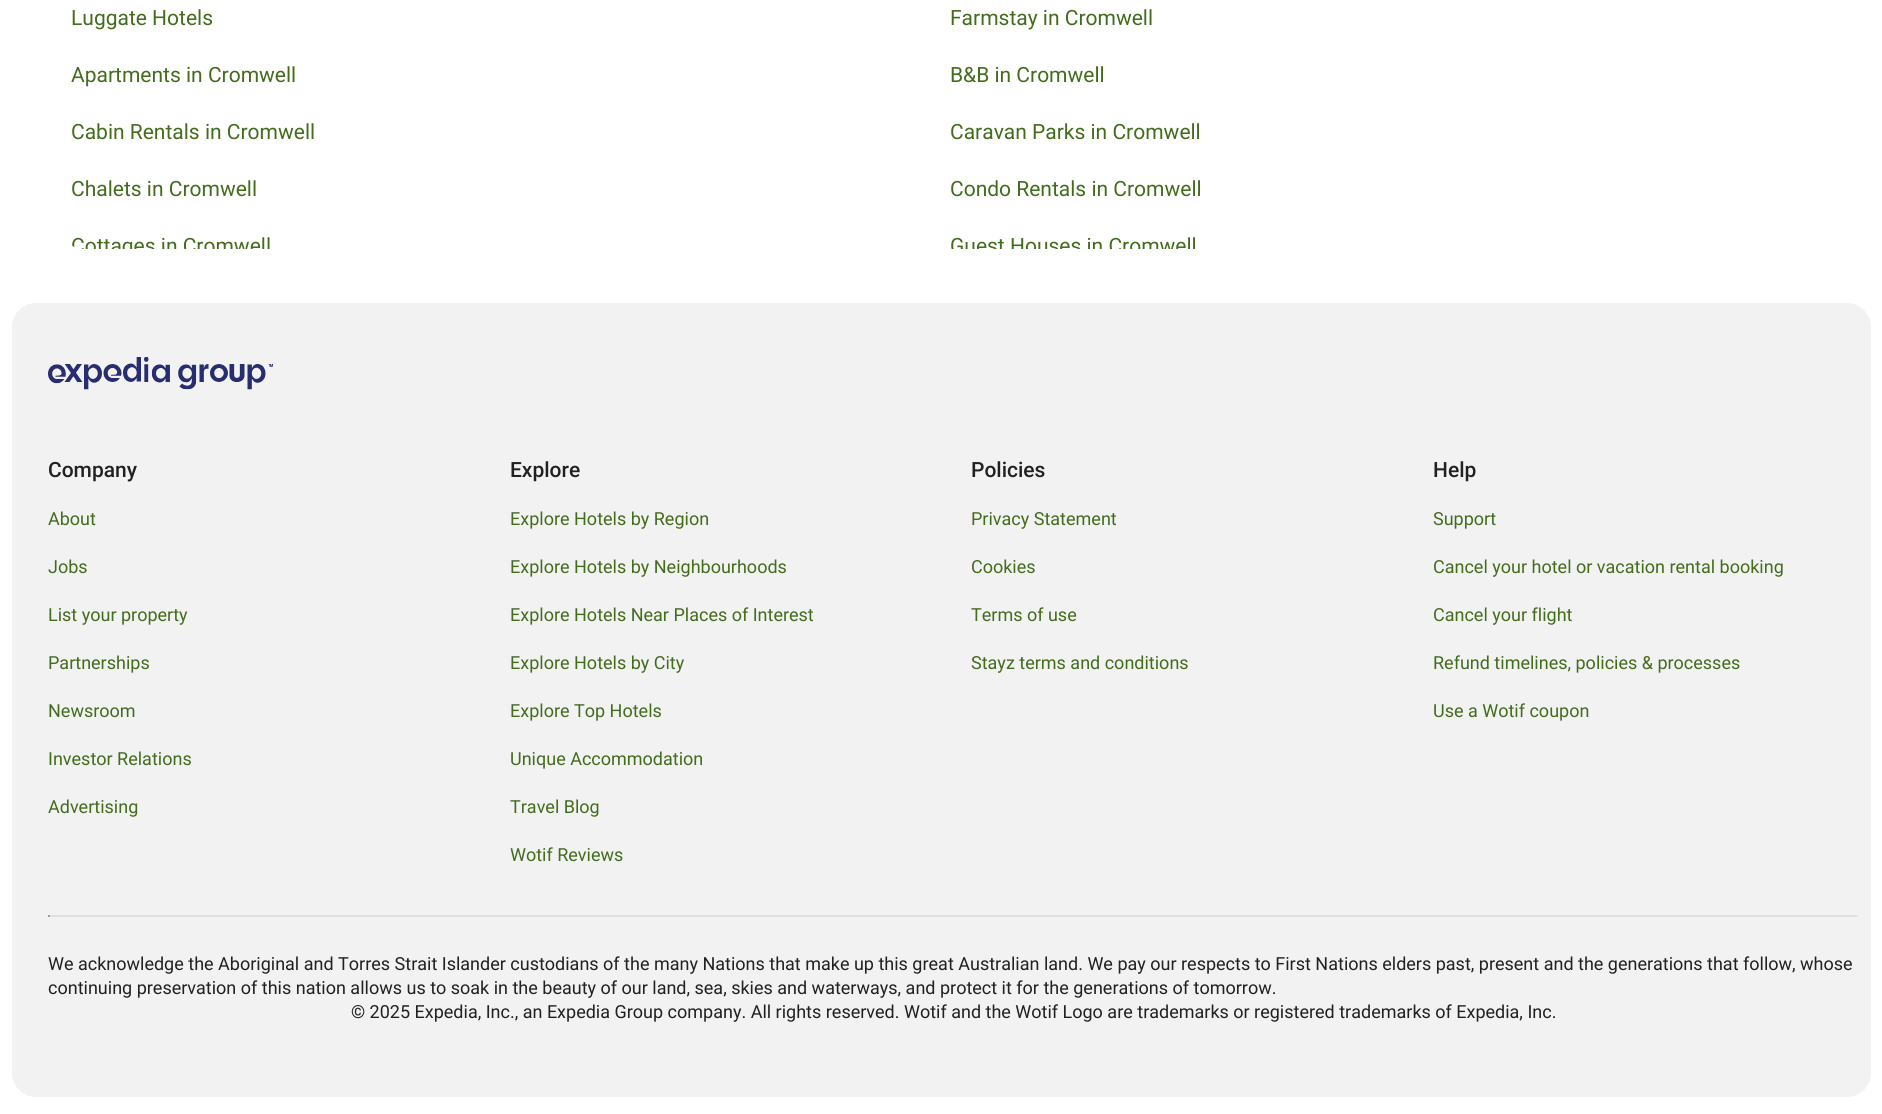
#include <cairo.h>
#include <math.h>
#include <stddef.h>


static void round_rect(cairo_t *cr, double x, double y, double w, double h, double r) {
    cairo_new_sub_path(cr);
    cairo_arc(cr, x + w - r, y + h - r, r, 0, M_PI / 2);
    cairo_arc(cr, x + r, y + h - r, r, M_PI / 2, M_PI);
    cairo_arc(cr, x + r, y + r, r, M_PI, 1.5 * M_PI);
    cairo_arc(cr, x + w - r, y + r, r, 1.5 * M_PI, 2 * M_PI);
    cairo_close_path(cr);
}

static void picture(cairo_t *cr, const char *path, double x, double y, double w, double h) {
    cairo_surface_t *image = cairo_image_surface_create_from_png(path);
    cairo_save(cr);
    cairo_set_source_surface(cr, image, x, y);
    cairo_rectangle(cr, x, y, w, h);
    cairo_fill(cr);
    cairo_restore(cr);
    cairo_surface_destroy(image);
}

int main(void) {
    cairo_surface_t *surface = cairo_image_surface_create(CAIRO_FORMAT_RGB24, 1882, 1114);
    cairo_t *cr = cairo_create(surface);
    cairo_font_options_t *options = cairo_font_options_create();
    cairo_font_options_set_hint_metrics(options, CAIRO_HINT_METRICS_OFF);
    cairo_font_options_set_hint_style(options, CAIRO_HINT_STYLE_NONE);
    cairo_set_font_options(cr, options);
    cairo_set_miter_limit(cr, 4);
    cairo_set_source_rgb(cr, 1, 1, 1);
    cairo_paint(cr);
    cairo_select_font_face(cr, "Roboto", CAIRO_FONT_SLANT_NORMAL, CAIRO_FONT_WEIGHT_NORMAL);
    cairo_set_font_size(cr, 21);
    cairo_set_source_rgb(cr, 0.263, 0.424, 0.114);
    cairo_move_to(cr, 71, 25);
    cairo_show_text(cr, "Luggate Hotels");
    cairo_move_to(cr, 950, 25);
    cairo_show_text(cr, "Farmstay in Cromwell");
    cairo_move_to(cr, 71, 82);
    cairo_show_text(cr, "Apartments in Cromwell");
    cairo_move_to(cr, 950, 82);
    cairo_show_text(cr, "B&B in Cromwell");
    cairo_move_to(cr, 71, 139);
    cairo_show_text(cr, "Cabin Rentals in Cromwell");
    cairo_move_to(cr, 950, 139);
    cairo_show_text(cr, "Caravan Parks in Cromwell");
    cairo_move_to(cr, 71, 196);
    cairo_show_text(cr, "Chalets in Cromwell");
    cairo_move_to(cr, 950, 196);
    cairo_show_text(cr, "Condo Rentals in Cromwell");
    cairo_save(cr);
    round_rect(cr, 60, -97, 1764, 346, 24);
    cairo_clip(cr);
    cairo_move_to(cr, 71, 253);
    cairo_show_text(cr, "Cottages in Cromwell");
    cairo_restore(cr);
    cairo_save(cr);
    cairo_rectangle(cr, 60, 0, 1764, 249);
    cairo_clip(cr);
    cairo_move_to(cr, 950, 253);
    cairo_show_text(cr, "Guest Houses in Cromwell");
    cairo_restore(cr);
    cairo_set_source_rgb(cr, 0.949, 0.949, 0.949);
    round_rect(cr, 12, 303, 1859, 794, 24);
    cairo_fill(cr);
    picture(cr, "img1.png", 48, 357, 225, 33);
    cairo_select_font_face(cr, "Roboto Medium", CAIRO_FONT_SLANT_NORMAL, CAIRO_FONT_WEIGHT_NORMAL);
    cairo_set_source_rgb(cr, 0.129, 0.129, 0.129);
    cairo_move_to(cr, 48, 477);
    cairo_show_text(cr, "Company");
    cairo_select_font_face(cr, "Roboto", CAIRO_FONT_SLANT_NORMAL, CAIRO_FONT_WEIGHT_NORMAL);
    cairo_set_font_size(cr, 18);
    cairo_set_source_rgb(cr, 0.263, 0.424, 0.114);
    cairo_move_to(cr, 48, 525);
    cairo_show_text(cr, "About");
    cairo_move_to(cr, 48, 573);
    cairo_show_text(cr, "Jobs");
    cairo_move_to(cr, 48, 621);
    cairo_show_text(cr, "List your property");
    cairo_move_to(cr, 48, 669);
    cairo_show_text(cr, "Partnerships");
    cairo_move_to(cr, 48, 717);
    cairo_show_text(cr, "Newsroom");
    cairo_move_to(cr, 48, 765);
    cairo_show_text(cr, "Investor Relations");
    cairo_move_to(cr, 48, 813);
    cairo_show_text(cr, "Advertising");
    cairo_select_font_face(cr, "Roboto Medium", CAIRO_FONT_SLANT_NORMAL, CAIRO_FONT_WEIGHT_NORMAL);
    cairo_set_font_size(cr, 21);
    cairo_set_source_rgb(cr, 0.129, 0.129, 0.129);
    cairo_move_to(cr, 510, 477);
    cairo_show_text(cr, "Explore");
    cairo_select_font_face(cr, "Roboto", CAIRO_FONT_SLANT_NORMAL, CAIRO_FONT_WEIGHT_NORMAL);
    cairo_set_font_size(cr, 18);
    cairo_set_source_rgb(cr, 0.263, 0.424, 0.114);
    cairo_move_to(cr, 510, 525);
    cairo_show_text(cr, "Explore Hotels by Region");
    cairo_move_to(cr, 510, 573);
    cairo_show_text(cr, "Explore Hotels by Neighbourhoods");
    cairo_move_to(cr, 510, 621);
    cairo_show_text(cr, "Explore Hotels Near Places of Interest");
    cairo_move_to(cr, 510, 669);
    cairo_show_text(cr, "Explore Hotels by City");
    cairo_move_to(cr, 510, 717);
    cairo_show_text(cr, "Explore Top Hotels");
    cairo_move_to(cr, 510, 765);
    cairo_show_text(cr, "Unique Accommodation");
    cairo_move_to(cr, 510, 813);
    cairo_show_text(cr, "Travel Blog");
    cairo_move_to(cr, 510, 861);
    cairo_show_text(cr, "Wotif Reviews");
    cairo_select_font_face(cr, "Roboto Medium", CAIRO_FONT_SLANT_NORMAL, CAIRO_FONT_WEIGHT_NORMAL);
    cairo_set_font_size(cr, 21);
    cairo_set_source_rgb(cr, 0.129, 0.129, 0.129);
    cairo_move_to(cr, 971, 477);
    cairo_show_text(cr, "Policies");
    cairo_select_font_face(cr, "Roboto", CAIRO_FONT_SLANT_NORMAL, CAIRO_FONT_WEIGHT_NORMAL);
    cairo_set_font_size(cr, 18);
    cairo_set_source_rgb(cr, 0.263, 0.424, 0.114);
    cairo_move_to(cr, 971, 525);
    cairo_show_text(cr, "Privacy Statement");
    cairo_move_to(cr, 971, 573);
    cairo_show_text(cr, "Cookies");
    cairo_move_to(cr, 971, 621);
    cairo_show_text(cr, "Terms of use");
    cairo_move_to(cr, 971, 669);
    cairo_show_text(cr, "Stayz terms and conditions");
    cairo_select_font_face(cr, "Roboto Medium", CAIRO_FONT_SLANT_NORMAL, CAIRO_FONT_WEIGHT_NORMAL);
    cairo_set_font_size(cr, 21);
    cairo_set_source_rgb(cr, 0.129, 0.129, 0.129);
    cairo_move_to(cr, 1433, 477);
    cairo_show_text(cr, "Help");
    cairo_select_font_face(cr, "Roboto", CAIRO_FONT_SLANT_NORMAL, CAIRO_FONT_WEIGHT_NORMAL);
    cairo_set_font_size(cr, 18);
    cairo_set_source_rgb(cr, 0.263, 0.424, 0.114);
    cairo_move_to(cr, 1433, 525);
    cairo_show_text(cr, "Support");
    cairo_move_to(cr, 1433, 573);
    cairo_show_text(cr, "Cancel your hotel or vacation rental booking");
    cairo_move_to(cr, 1433, 621);
    cairo_show_text(cr, "Cancel your flight");
    cairo_move_to(cr, 1433, 669);
    cairo_show_text(cr, "Refund timelines, policies & processes");
    cairo_move_to(cr, 1433, 717);
    cairo_show_text(cr, "Use a Wotif coupon");
    cairo_set_source_rgb(cr, 0.878, 0.878, 0.878);
    cairo_rectangle(cr, 48, 915, 1811, 2);
    cairo_fill(cr);
    cairo_set_source_rgb(cr, 0.933, 0.933, 0.933);
    cairo_rectangle(cr, 1857, 915, 2, 2);
    cairo_fill(cr);
    cairo_set_source_rgb(cr, 0.624, 0.624, 0.624);
    cairo_rectangle(cr, 48, 915, 2, 2);
    cairo_fill(cr);
    cairo_set_source_rgb(cr, 0.129, 0.129, 0.129);
    cairo_move_to(cr, 48, 970);
    cairo_show_text(cr, "We acknowledge the Aboriginal and Torres Strait Islander custodians of the many Nations that make up this great Australian land. We pay our respects to First Nations elders past, present and the generations that follow, whose");
    cairo_move_to(cr, 48, 994);
    cairo_show_text(cr, "continuing preservation of this nation allows us to soak in the beauty of our land, sea, skies and waterways, and protect it for the generations of tomorrow.");
    cairo_move_to(cr, 351, 1018);
    cairo_show_text(cr, "© 2025 Expedia, Inc., an Expedia Group company. All rights reserved. Wotif and the Wotif Logo are trademarks or registered trademarks of Expedia, Inc.");
    cairo_surface_write_to_png(surface, "page.png");
    cairo_font_options_destroy(options);
    cairo_destroy(cr);
    cairo_surface_destroy(surface);
    return 0;
}
